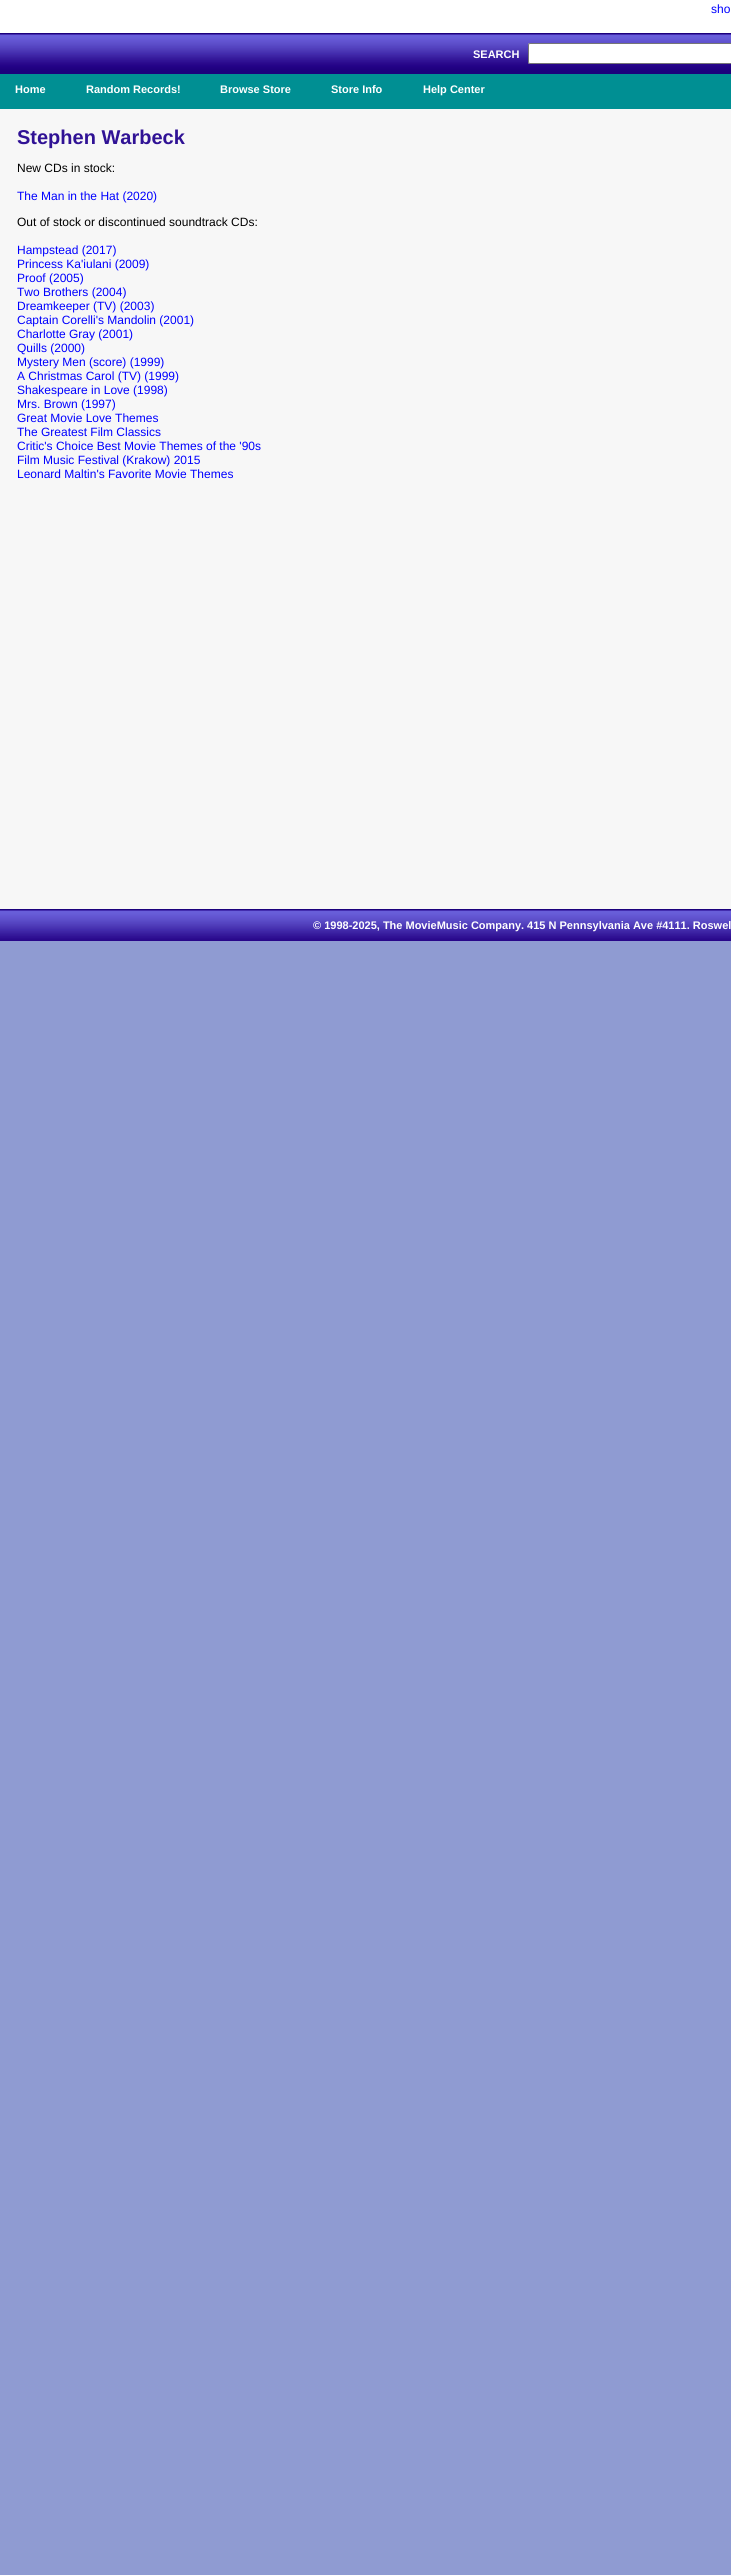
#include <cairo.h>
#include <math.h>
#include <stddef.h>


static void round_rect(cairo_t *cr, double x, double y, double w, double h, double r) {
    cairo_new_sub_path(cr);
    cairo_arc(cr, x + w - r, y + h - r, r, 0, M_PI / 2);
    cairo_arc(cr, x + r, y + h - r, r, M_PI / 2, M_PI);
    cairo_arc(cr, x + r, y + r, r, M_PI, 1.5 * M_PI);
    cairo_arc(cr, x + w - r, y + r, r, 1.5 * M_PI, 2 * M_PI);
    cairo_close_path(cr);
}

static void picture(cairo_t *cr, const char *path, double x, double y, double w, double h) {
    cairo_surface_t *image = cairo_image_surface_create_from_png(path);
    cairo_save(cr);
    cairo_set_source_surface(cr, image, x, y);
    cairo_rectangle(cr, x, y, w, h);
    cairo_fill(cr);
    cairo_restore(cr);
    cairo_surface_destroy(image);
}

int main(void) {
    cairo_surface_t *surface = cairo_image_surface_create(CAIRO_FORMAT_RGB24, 731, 2575);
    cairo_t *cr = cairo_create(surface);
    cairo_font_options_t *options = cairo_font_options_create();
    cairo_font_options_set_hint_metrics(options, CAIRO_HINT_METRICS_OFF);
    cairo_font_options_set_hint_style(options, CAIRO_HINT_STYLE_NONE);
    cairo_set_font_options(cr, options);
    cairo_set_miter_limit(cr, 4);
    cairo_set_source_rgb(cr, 0.561, 0.608, 0.824);
    cairo_paint(cr);
    cairo_set_source_rgb(cr, 1, 1, 1);
    cairo_rectangle(cr, 0, 0, 731, 33);
    cairo_fill(cr);
    cairo_select_font_face(cr, "Liberation Sans", CAIRO_FONT_SLANT_NORMAL, CAIRO_FONT_WEIGHT_NORMAL);
    cairo_set_font_size(cr, 12);
    cairo_set_source_rgb(cr, 0, 0, 1);
    cairo_move_to(cr, 711, 13);
    cairo_show_text(cr, "sho");
    picture(cr, "img1.png", 0, 33, 731, 41);
    cairo_select_font_face(cr, "Liberation Sans", CAIRO_FONT_SLANT_NORMAL, CAIRO_FONT_WEIGHT_BOLD);
    cairo_set_font_size(cr, 11);
    cairo_set_source_rgb(cr, 1, 1, 1);
    cairo_move_to(cr, 473, 58);
    cairo_show_text(cr, "SEARCH");
    cairo_new_path(cr);
    cairo_move_to(cr, 530, 43);
    cairo_line_to(cr, 731, 43);
    cairo_line_to(cr, 731, 64);
    cairo_line_to(cr, 530, 64);
    cairo_curve_to(cr, 529, 64, 528, 63, 528, 62);
    cairo_line_to(cr, 528, 45);
    cairo_curve_to(cr, 528, 44, 529, 43, 530, 43);
    cairo_close_path(cr);
    cairo_fill(cr);
    round_rect(cr, 528.5, 43.5, 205, 20, 1.5);
    cairo_set_source_rgb(cr, 0.463, 0.463, 0.463);
    cairo_set_line_width(cr, 1);
    cairo_stroke(cr);
    cairo_set_source_rgb(cr, 0, 0.561, 0.576);
    cairo_rectangle(cr, 0, 74, 731, 35);
    cairo_fill(cr);
    cairo_set_source_rgb(cr, 1, 1, 1);
    cairo_move_to(cr, 15, 93);
    cairo_show_text(cr, "Home");
    cairo_move_to(cr, 86, 93);
    cairo_show_text(cr, "Random Records!");
    cairo_move_to(cr, 220, 93);
    cairo_show_text(cr, "Browse Store");
    cairo_move_to(cr, 331, 93);
    cairo_show_text(cr, "Store Info");
    cairo_move_to(cr, 423, 93);
    cairo_show_text(cr, "Help Center");
    cairo_set_source_rgb(cr, 0.965, 0.965, 0.965);
    cairo_rectangle(cr, 0, 109, 731, 800);
    cairo_fill(cr);
    cairo_set_font_size(cr, 20);
    cairo_set_source_rgb(cr, 0.188, 0.071, 0.584);
    cairo_move_to(cr, 17, 144);
    cairo_show_text(cr, "Stephen Warbeck");
    cairo_select_font_face(cr, "Liberation Sans", CAIRO_FONT_SLANT_NORMAL, CAIRO_FONT_WEIGHT_NORMAL);
    cairo_set_font_size(cr, 12);
    cairo_set_source_rgb(cr, 0, 0, 0);
    cairo_move_to(cr, 17, 172);
    cairo_show_text(cr, "New CDs in stock:");
    cairo_set_source_rgb(cr, 0, 0, 1);
    cairo_move_to(cr, 17, 200);
    cairo_show_text(cr, "The Man in the Hat (2020)");
    cairo_set_source_rgb(cr, 0, 0, 0);
    cairo_move_to(cr, 17, 226);
    cairo_show_text(cr, "Out of stock or discontinued soundtrack CDs:");
    cairo_set_source_rgb(cr, 0, 0, 1);
    cairo_move_to(cr, 17, 254);
    cairo_show_text(cr, "Hampstead (2017)");
    cairo_move_to(cr, 17, 268);
    cairo_show_text(cr, "Princess Ka'iulani (2009)");
    cairo_move_to(cr, 17, 282);
    cairo_show_text(cr, "Proof (2005)");
    cairo_move_to(cr, 17, 296);
    cairo_show_text(cr, "Two Brothers (2004)");
    cairo_move_to(cr, 17, 310);
    cairo_show_text(cr, "Dreamkeeper (TV) (2003)");
    cairo_move_to(cr, 17, 324);
    cairo_show_text(cr, "Captain Corelli's Mandolin (2001)");
    cairo_move_to(cr, 17, 338);
    cairo_show_text(cr, "Charlotte Gray (2001)");
    cairo_move_to(cr, 17, 352);
    cairo_show_text(cr, "Quills (2000)");
    cairo_move_to(cr, 17, 366);
    cairo_show_text(cr, "Mystery Men (score) (1999)");
    cairo_move_to(cr, 17, 380);
    cairo_show_text(cr, "A Christmas Carol (TV) (1999)");
    cairo_move_to(cr, 17, 394);
    cairo_show_text(cr, "Shakespeare in Love (1998)");
    cairo_move_to(cr, 17, 408);
    cairo_show_text(cr, "Mrs. Brown (1997)");
    cairo_move_to(cr, 17, 422);
    cairo_show_text(cr, "Great Movie Love Themes");
    cairo_move_to(cr, 17, 436);
    cairo_show_text(cr, "The Greatest Film Classics");
    cairo_move_to(cr, 17, 450);
    cairo_show_text(cr, "Critic's Choice Best Movie Themes of the '90s");
    cairo_move_to(cr, 17, 464);
    cairo_show_text(cr, "Film Music Festival (Krakow) 2015");
    cairo_move_to(cr, 17, 478);
    cairo_show_text(cr, "Leonard Maltin's Favorite Movie Themes");
    picture(cr, "img2.png", 0, 909, 731, 32);
    cairo_select_font_face(cr, "Liberation Sans", CAIRO_FONT_SLANT_NORMAL, CAIRO_FONT_WEIGHT_BOLD);
    cairo_set_font_size(cr, 11);
    cairo_set_source_rgb(cr, 1, 1, 1);
    cairo_move_to(cr, 313, 929);
    cairo_show_text(cr, "© 1998-2025, The MovieMusic Company. 415 N Pennsylvania Ave #4111. Roswel");
    cairo_surface_write_to_png(surface, "page.png");
    cairo_font_options_destroy(options);
    cairo_destroy(cr);
    cairo_surface_destroy(surface);
    return 0;
}
